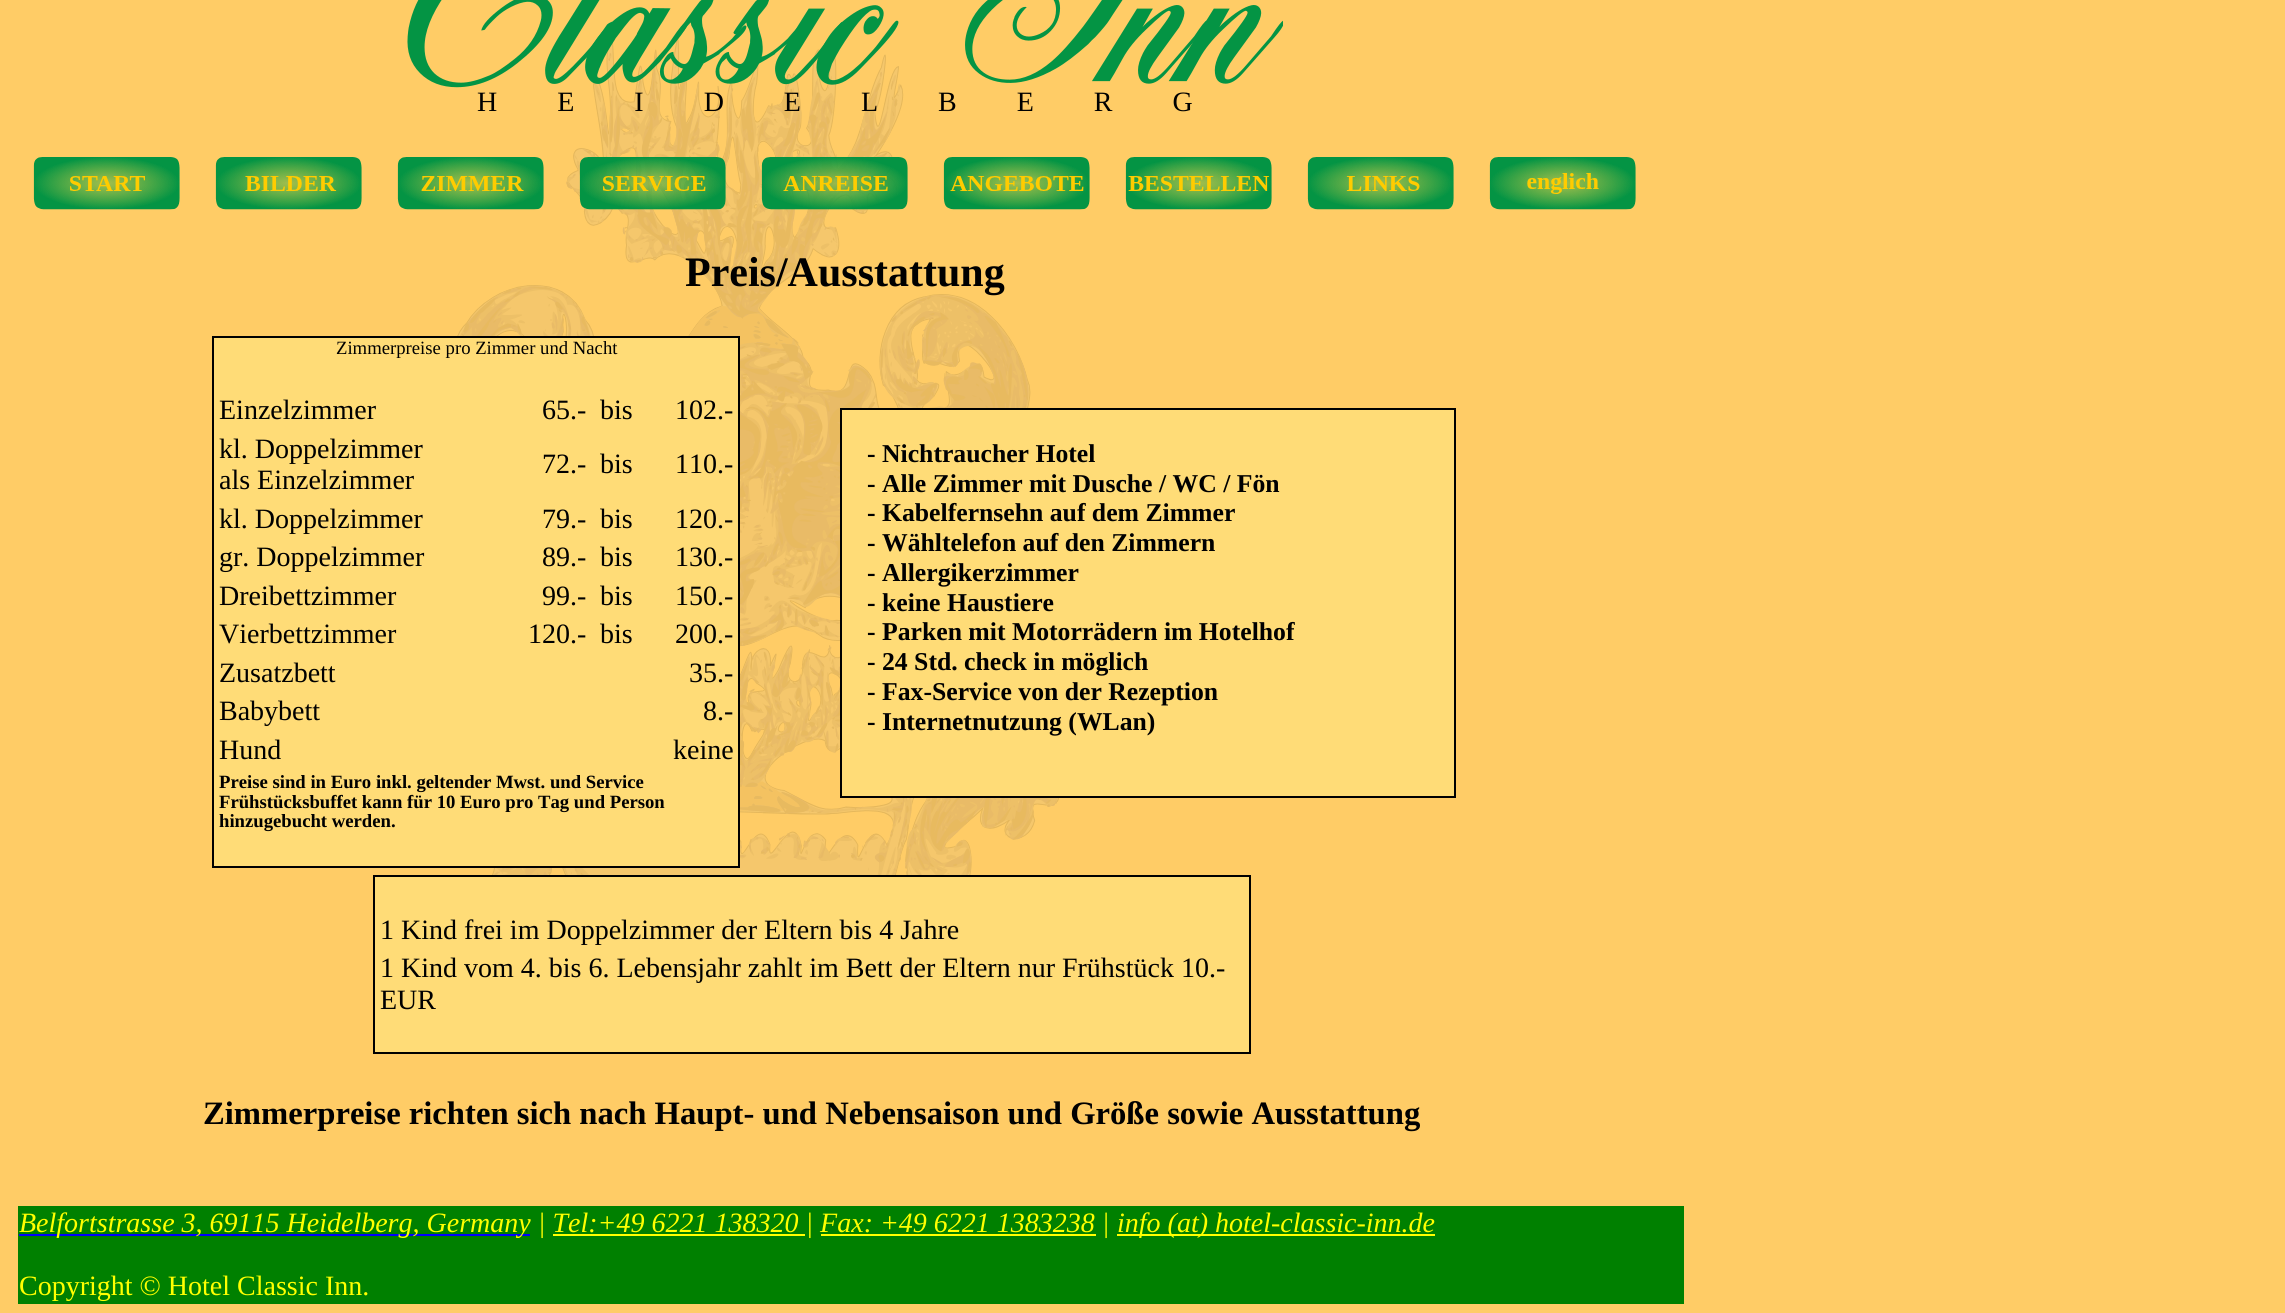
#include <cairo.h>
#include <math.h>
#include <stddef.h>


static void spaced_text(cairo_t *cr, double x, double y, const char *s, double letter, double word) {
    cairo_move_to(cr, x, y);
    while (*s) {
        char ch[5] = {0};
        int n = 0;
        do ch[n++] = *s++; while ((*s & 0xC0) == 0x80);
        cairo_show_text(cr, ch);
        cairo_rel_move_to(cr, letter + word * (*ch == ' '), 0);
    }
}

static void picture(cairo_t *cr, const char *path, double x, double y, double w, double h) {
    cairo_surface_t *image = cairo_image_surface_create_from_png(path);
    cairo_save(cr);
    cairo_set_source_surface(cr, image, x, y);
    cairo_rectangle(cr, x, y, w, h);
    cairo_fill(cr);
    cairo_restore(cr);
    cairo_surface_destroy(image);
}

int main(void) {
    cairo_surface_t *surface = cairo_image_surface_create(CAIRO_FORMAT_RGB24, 2285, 1313);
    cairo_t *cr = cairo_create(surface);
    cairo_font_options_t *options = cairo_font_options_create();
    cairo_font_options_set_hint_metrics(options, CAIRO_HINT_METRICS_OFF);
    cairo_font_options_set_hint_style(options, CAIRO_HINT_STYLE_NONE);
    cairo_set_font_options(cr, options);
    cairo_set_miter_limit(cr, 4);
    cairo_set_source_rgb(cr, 1, 0.8, 0.4);
    cairo_paint(cr);
    picture(cr, "img1.png", 457, 38, 602, 837);
    picture(cr, "img2.png", 407, 0, 876, 88);
    cairo_select_font_face(cr, "Liberation Serif", CAIRO_FONT_SLANT_NORMAL, CAIRO_FONT_WEIGHT_NORMAL);
    cairo_set_font_size(cr, 28);
    cairo_set_source_rgb(cr, 0, 0, 0);
    spaced_text(cr, 477, 111, "H E I D E L B E R G", 0, 53);
    picture(cr, "img3.png", 33, 157, 147, 53);
    picture(cr, "img4.png", 215, 157, 147, 53);
    picture(cr, "img5.png", 397, 157, 147, 53);
    picture(cr, "img6.png", 579, 157, 147, 53);
    picture(cr, "img7.png", 761, 157, 147, 53);
    picture(cr, "img8.png", 943, 157, 147, 53);
    picture(cr, "img9.png", 1125, 157, 147, 53);
    picture(cr, "img10.png", 1307, 157, 147, 53);
    picture(cr, "img11.png", 1489, 157, 147, 53);
    cairo_select_font_face(cr, "Liberation Serif", CAIRO_FONT_SLANT_NORMAL, CAIRO_FONT_WEIGHT_BOLD);
    cairo_set_font_size(cr, 42);
    cairo_move_to(cr, 685, 286);
    cairo_show_text(cr, "Preis/Ausstattung");
    cairo_set_source_rgb(cr, 1, 0.863, 0.467);
    cairo_rectangle(cr, 213, 337, 526, 530);
    cairo_fill_preserve(cr);
    cairo_set_source_rgb(cr, 0, 0, 0);
    cairo_stroke(cr);
    cairo_select_font_face(cr, "Liberation Serif", CAIRO_FONT_SLANT_NORMAL, CAIRO_FONT_WEIGHT_NORMAL);
    cairo_set_font_size(cr, 18.7);
    cairo_move_to(cr, 336, 354);
    cairo_show_text(cr, "Zimmerpreise pro Zimmer und Nacht");
    cairo_set_font_size(cr, 28);
    cairo_move_to(cr, 219, 419);
    cairo_show_text(cr, "Einzelzimmer");
    cairo_move_to(cr, 542, 419);
    cairo_show_text(cr, "65.-");
    cairo_move_to(cr, 600, 419);
    cairo_show_text(cr, "bis");
    cairo_move_to(cr, 675, 419);
    cairo_show_text(cr, "102.-");
    cairo_move_to(cr, 219, 458);
    cairo_show_text(cr, "kl. Doppelzimmer");
    cairo_move_to(cr, 219, 489);
    cairo_show_text(cr, "als Einzelzimmer");
    cairo_move_to(cr, 542, 473);
    cairo_show_text(cr, "72.-");
    cairo_move_to(cr, 600, 473);
    cairo_show_text(cr, "bis");
    cairo_move_to(cr, 675, 473);
    cairo_show_text(cr, "110.-");
    cairo_move_to(cr, 219, 528);
    cairo_show_text(cr, "kl. Doppelzimmer");
    cairo_move_to(cr, 542, 528);
    cairo_show_text(cr, "79.-");
    cairo_move_to(cr, 600, 528);
    cairo_show_text(cr, "bis");
    cairo_move_to(cr, 675, 528);
    cairo_show_text(cr, "120.-");
    cairo_move_to(cr, 219, 566);
    cairo_show_text(cr, "gr. Doppelzimmer");
    cairo_move_to(cr, 542, 566);
    cairo_show_text(cr, "89.-");
    cairo_move_to(cr, 600, 566);
    cairo_show_text(cr, "bis");
    cairo_move_to(cr, 675, 566);
    cairo_show_text(cr, "130.-");
    cairo_move_to(cr, 219, 605);
    cairo_show_text(cr, "Dreibettzimmer");
    cairo_move_to(cr, 542, 605);
    cairo_show_text(cr, "99.-");
    cairo_move_to(cr, 600, 605);
    cairo_show_text(cr, "bis");
    cairo_move_to(cr, 675, 605);
    cairo_show_text(cr, "150.-");
    cairo_move_to(cr, 219, 643);
    cairo_show_text(cr, "Vierbettzimmer");
    cairo_move_to(cr, 528, 643);
    cairo_show_text(cr, "120.-");
    cairo_move_to(cr, 600, 643);
    cairo_show_text(cr, "bis");
    cairo_move_to(cr, 675, 643);
    cairo_show_text(cr, "200.-");
    cairo_move_to(cr, 219, 682);
    cairo_show_text(cr, "Zusatzbett");
    cairo_move_to(cr, 689, 682);
    cairo_show_text(cr, "35.-");
    cairo_move_to(cr, 219, 720);
    cairo_show_text(cr, "Babybett");
    cairo_move_to(cr, 703, 720);
    cairo_show_text(cr, "8.-");
    cairo_move_to(cr, 219, 759);
    cairo_show_text(cr, "Hund");
    cairo_move_to(cr, 673, 759);
    cairo_show_text(cr, "keine");
    cairo_select_font_face(cr, "Liberation Serif", CAIRO_FONT_SLANT_NORMAL, CAIRO_FONT_WEIGHT_BOLD);
    cairo_set_font_size(cr, 18.7);
    cairo_move_to(cr, 219, 788);
    cairo_show_text(cr, "Preise sind in Euro inkl. geltender Mwst. und Service");
    cairo_move_to(cr, 219, 808);
    cairo_show_text(cr, "Frühstücksbuffet kann für 10 Euro pro Tag und Person");
    cairo_move_to(cr, 219, 827);
    cairo_show_text(cr, "hinzugebucht werden.");
    cairo_set_source_rgb(cr, 1, 0.863, 0.467);
    cairo_rectangle(cr, 841, 409, 614, 388);
    cairo_fill_preserve(cr);
    cairo_set_source_rgb(cr, 0, 0, 0);
    cairo_stroke(cr);
    cairo_set_font_size(cr, 25.7);
    cairo_move_to(cr, 867, 462);
    cairo_show_text(cr, "- Nichtraucher Hotel");
    cairo_move_to(cr, 867, 492);
    cairo_show_text(cr, "- Alle Zimmer mit Dusche / WC / Fön");
    cairo_move_to(cr, 867, 521);
    cairo_show_text(cr, "- Kabelfernsehn auf dem Zimmer");
    cairo_move_to(cr, 867, 551);
    cairo_show_text(cr, "- Wähltelefon auf den Zimmern");
    cairo_move_to(cr, 867, 581);
    cairo_show_text(cr, "- Allergikerzimmer");
    cairo_move_to(cr, 867, 611);
    cairo_show_text(cr, "- keine Haustiere");
    cairo_move_to(cr, 867, 640);
    cairo_show_text(cr, "- Parken mit Motorrädern im Hotelhof");
    cairo_move_to(cr, 867, 670);
    cairo_show_text(cr, "- 24 Std. check in möglich");
    cairo_move_to(cr, 867, 700);
    cairo_show_text(cr, "- Fax-Service von der Rezeption");
    cairo_move_to(cr, 867, 730);
    cairo_show_text(cr, "- Internetnutzung (WLan)");
    cairo_set_source_rgb(cr, 1, 0.863, 0.467);
    cairo_rectangle(cr, 374, 876, 876, 177);
    cairo_fill_preserve(cr);
    cairo_set_source_rgb(cr, 0, 0, 0);
    cairo_stroke(cr);
    cairo_select_font_face(cr, "Liberation Serif", CAIRO_FONT_SLANT_NORMAL, CAIRO_FONT_WEIGHT_NORMAL);
    cairo_set_font_size(cr, 28);
    cairo_move_to(cr, 380, 939);
    cairo_show_text(cr, "1 Kind frei im Doppelzimmer der Eltern bis 4 Jahre");
    cairo_move_to(cr, 380, 977);
    cairo_show_text(cr, "1 Kind vom 4. bis 6. Lebensjahr zahlt im Bett der Eltern nur Frühstück 10.-");
    cairo_move_to(cr, 380, 1009);
    cairo_show_text(cr, "EUR");
    cairo_select_font_face(cr, "Liberation Serif", CAIRO_FONT_SLANT_NORMAL, CAIRO_FONT_WEIGHT_BOLD);
    cairo_set_font_size(cr, 32.65);
    cairo_move_to(cr, 203, 1124);
    cairo_show_text(cr, "Zimmerpreise richten sich nach Haupt- und Nebensaison und Größe sowie Ausstattung");
    cairo_set_source_rgb(cr, 0, 0.502, 0);
    cairo_rectangle(cr, 18, 1206, 1666, 98);
    cairo_fill(cr);
    cairo_set_source_rgb(cr, 0, 0, 1);
    cairo_rectangle(cr, 19, 1234, 511, 2);
    cairo_fill(cr);
    cairo_select_font_face(cr, "Liberation Serif", CAIRO_FONT_SLANT_ITALIC, CAIRO_FONT_WEIGHT_NORMAL);
    cairo_set_font_size(cr, 28);
    cairo_set_source_rgb(cr, 1, 1, 0);
    cairo_move_to(cr, 19, 1232);
    cairo_show_text(cr, "Belfortstrasse 3, 69115 Heidelberg, Germany | Tel:+49 6221 138320 | Fax: +49 6221 1383238 |");
    cairo_rectangle(cr, 1117, 1234, 318, 2);
    cairo_fill(cr);
    cairo_move_to(cr, 1117, 1232);
    cairo_show_text(cr, "info (at) hotel-classic-inn.de");
    cairo_rectangle(cr, 553, 1234, 252, 2);
    cairo_fill(cr);
    cairo_rectangle(cr, 821, 1234, 275, 2);
    cairo_fill(cr);
    cairo_select_font_face(cr, "Liberation Serif", CAIRO_FONT_SLANT_NORMAL, CAIRO_FONT_WEIGHT_NORMAL);
    cairo_move_to(cr, 19, 1295);
    cairo_show_text(cr, "Copyright © Hotel Classic Inn.");
    cairo_surface_write_to_png(surface, "page.png");
    cairo_font_options_destroy(options);
    cairo_destroy(cr);
    cairo_surface_destroy(surface);
    return 0;
}
